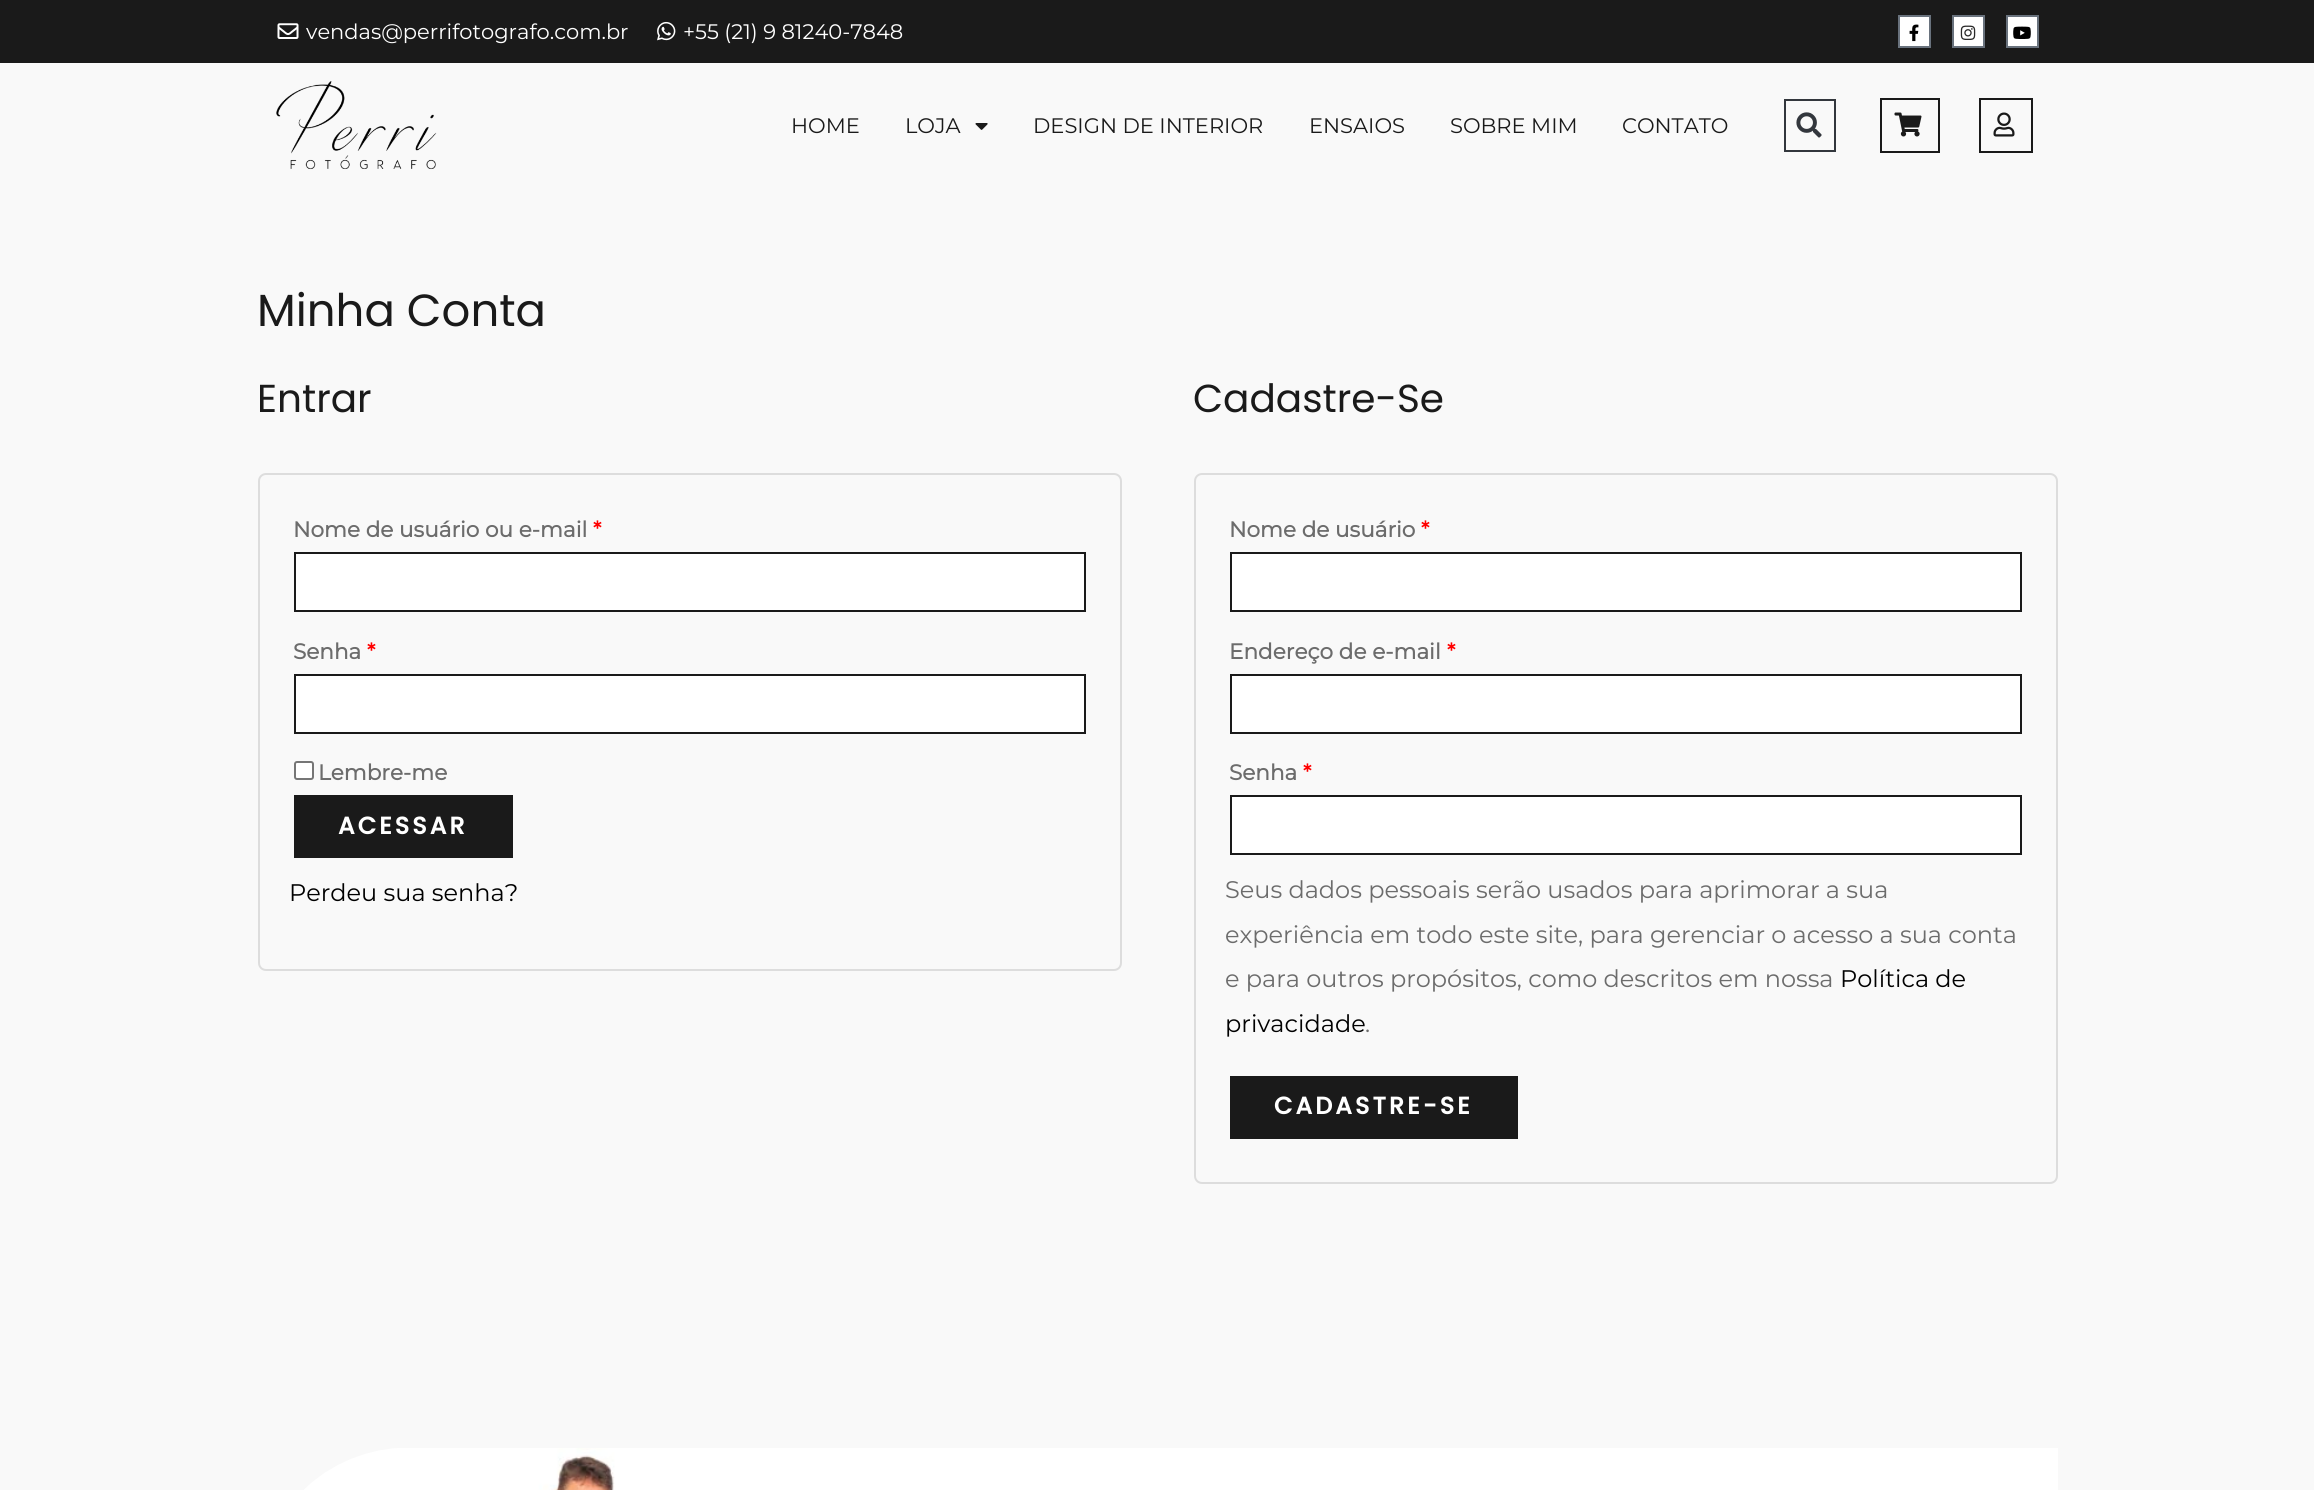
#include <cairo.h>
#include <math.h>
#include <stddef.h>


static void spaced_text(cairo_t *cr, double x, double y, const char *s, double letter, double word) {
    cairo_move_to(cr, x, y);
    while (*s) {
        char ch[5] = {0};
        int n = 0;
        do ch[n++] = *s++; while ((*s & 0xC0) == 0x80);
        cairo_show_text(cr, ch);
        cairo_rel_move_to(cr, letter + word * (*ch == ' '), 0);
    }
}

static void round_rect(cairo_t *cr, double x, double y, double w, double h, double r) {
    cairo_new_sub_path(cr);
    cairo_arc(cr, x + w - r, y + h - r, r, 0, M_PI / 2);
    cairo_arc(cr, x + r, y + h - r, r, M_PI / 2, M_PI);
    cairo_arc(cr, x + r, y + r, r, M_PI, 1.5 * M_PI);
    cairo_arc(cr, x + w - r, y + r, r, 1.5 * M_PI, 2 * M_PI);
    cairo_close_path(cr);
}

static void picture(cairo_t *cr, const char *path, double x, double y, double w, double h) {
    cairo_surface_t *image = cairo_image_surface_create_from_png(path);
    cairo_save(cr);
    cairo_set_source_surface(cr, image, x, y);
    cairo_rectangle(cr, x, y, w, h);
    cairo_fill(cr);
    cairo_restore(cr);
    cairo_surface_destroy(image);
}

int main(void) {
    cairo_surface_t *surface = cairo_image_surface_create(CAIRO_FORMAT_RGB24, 2314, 1490);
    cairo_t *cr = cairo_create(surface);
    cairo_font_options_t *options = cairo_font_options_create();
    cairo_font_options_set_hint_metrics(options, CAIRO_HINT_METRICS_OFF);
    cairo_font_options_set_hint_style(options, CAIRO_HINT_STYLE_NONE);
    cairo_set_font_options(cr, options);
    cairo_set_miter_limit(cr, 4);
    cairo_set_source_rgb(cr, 0.976, 0.976, 0.976);
    cairo_paint(cr);
    cairo_set_source_rgb(cr, 0.102, 0.102, 0.102);
    cairo_rectangle(cr, 0, 0, 2314, 63);
    cairo_fill(cr);
    picture(cr, "img1.png", 277, 23, 22, 16);
    cairo_select_font_face(cr, "Montserrat Thin", CAIRO_FONT_SLANT_NORMAL, CAIRO_FONT_WEIGHT_NORMAL);
    cairo_set_font_size(cr, 21);
    cairo_set_source_rgb(cr, 1, 1, 1);
    cairo_move_to(cr, 306, 39);
    cairo_show_text(cr, "vendas@perrifotografo.com.br");
    picture(cr, "img2.png", 657, 21, 19, 20);
    cairo_move_to(cr, 683, 39);
    cairo_show_text(cr, "+55 (21) 9 81240-7848");
    cairo_rectangle(cr, 1899, 16, 31, 31);
    cairo_fill_preserve(cr);
    cairo_set_source_rgb(cr, 0.412, 0.447, 0.49);
    cairo_stroke(cr);
    picture(cr, "img3.png", 1909, 24, 10, 18);
    cairo_set_source_rgb(cr, 1, 1, 1);
    cairo_rectangle(cr, 1953, 16, 31, 31);
    cairo_fill_preserve(cr);
    cairo_set_source_rgb(cr, 0.412, 0.447, 0.49);
    cairo_stroke(cr);
    picture(cr, "img4.png", 1960, 25, 16, 15);
    cairo_set_source_rgb(cr, 1, 1, 1);
    cairo_rectangle(cr, 2007, 16, 31, 31);
    cairo_fill_preserve(cr);
    cairo_set_source_rgb(cr, 0.412, 0.447, 0.49);
    cairo_stroke(cr);
    picture(cr, "img5.png", 2013, 26, 18, 13);
    picture(cr, "img6.png", 276, 81, 161, 89);
    cairo_set_source_rgb(cr, 0.102, 0.102, 0.102);
    cairo_move_to(cr, 791, 133);
    cairo_show_text(cr, "HOME");
    cairo_move_to(cr, 905, 133);
    cairo_show_text(cr, "LOJA");
    picture(cr, "img7.png", 975, 123, 13, 7);
    cairo_move_to(cr, 1033, 133);
    cairo_show_text(cr, "DESIGN DE INTERIOR");
    cairo_move_to(cr, 1309, 133);
    cairo_show_text(cr, "ENSAIOS");
    cairo_move_to(cr, 1450, 133);
    cairo_show_text(cr, "SOBRE MIM");
    cairo_move_to(cr, 1622, 133);
    cairo_show_text(cr, "CONTATO");
    cairo_rectangle(cr, 1785, 100, 50, 51);
    cairo_set_source_rgb(cr, 0.2, 0.216, 0.239);
    cairo_stroke(cr);
    picture(cr, "img8.png", 1796, 112, 26, 26);
    cairo_rectangle(cr, 1881, 99, 58, 53);
    cairo_set_source_rgb(cr, 0.102, 0.102, 0.102);
    cairo_stroke(cr);
    picture(cr, "img9.png", 1894, 112, 28, 25);
    cairo_rectangle(cr, 1980, 99, 52, 53);
    cairo_stroke(cr);
    picture(cr, "img10.png", 1993, 112, 22, 25);
    cairo_select_font_face(cr, "Poppins", CAIRO_FONT_SLANT_NORMAL, CAIRO_FONT_WEIGHT_NORMAL);
    cairo_set_font_size(cr, 45);
    cairo_move_to(cr, 257, 326);
    cairo_show_text(cr, "Minha Conta");
    cairo_set_font_size(cr, 39);
    cairo_move_to(cr, 257, 412);
    cairo_show_text(cr, "Entrar");
    round_rect(cr, 259, 474, 862, 496, 7);
    cairo_set_source_rgb(cr, 0.867, 0.867, 0.867);
    cairo_stroke(cr);
    cairo_select_font_face(cr, "Montserrat", CAIRO_FONT_SLANT_NORMAL, CAIRO_FONT_WEIGHT_BOLD);
    cairo_set_font_size(cr, 21.6);
    cairo_set_source_rgb(cr, 0.424, 0.424, 0.424);
    cairo_move_to(cr, 293, 537);
    cairo_show_text(cr, "Nome de usuário ou e-mail");
    cairo_set_source_rgb(cr, 1, 0, 0);
    cairo_move_to(cr, 593, 537);
    cairo_show_text(cr, "*");
    cairo_set_source_rgb(cr, 1, 1, 1);
    cairo_rectangle(cr, 295, 553, 790, 58);
    cairo_fill_preserve(cr);
    cairo_set_source_rgb(cr, 0.102, 0.102, 0.102);
    cairo_stroke(cr);
    cairo_set_source_rgb(cr, 0.424, 0.424, 0.424);
    cairo_move_to(cr, 293, 659);
    cairo_show_text(cr, "Senha");
    cairo_set_source_rgb(cr, 1, 0, 0);
    cairo_move_to(cr, 367, 659);
    cairo_show_text(cr, "*");
    cairo_set_source_rgb(cr, 1, 1, 1);
    cairo_rectangle(cr, 295, 675, 790, 58);
    cairo_fill_preserve(cr);
    cairo_set_source_rgb(cr, 0.102, 0.102, 0.102);
    cairo_stroke(cr);
    cairo_set_source_rgb(cr, 1, 1, 1);
    round_rect(cr, 295, 762, 18, 17, 2);
    cairo_fill_preserve(cr);
    cairo_set_source_rgb(cr, 0.463, 0.463, 0.463);
    cairo_stroke(cr);
    cairo_set_source_rgb(cr, 0.424, 0.424, 0.424);
    cairo_move_to(cr, 318, 780);
    cairo_show_text(cr, "Lembre-me");
    cairo_set_source_rgb(cr, 0.102, 0.102, 0.102);
    cairo_rectangle(cr, 294, 795, 219, 63);
    cairo_fill(cr);
    cairo_select_font_face(cr, "Poppins", CAIRO_FONT_SLANT_NORMAL, CAIRO_FONT_WEIGHT_BOLD);
    cairo_set_font_size(cr, 24);
    cairo_set_source_rgb(cr, 1, 1, 1);
    spaced_text(cr, 338, 834, "ACESSAR", 3, 0);
    cairo_select_font_face(cr, "Montserrat Thin", CAIRO_FONT_SLANT_NORMAL, CAIRO_FONT_WEIGHT_NORMAL);
    cairo_set_source_rgb(cr, 0, 0, 0);
    cairo_move_to(cr, 289, 901);
    cairo_show_text(cr, "Perdeu sua senha?");
    cairo_select_font_face(cr, "Poppins", CAIRO_FONT_SLANT_NORMAL, CAIRO_FONT_WEIGHT_NORMAL);
    cairo_set_font_size(cr, 39);
    cairo_set_source_rgb(cr, 0.102, 0.102, 0.102);
    cairo_move_to(cr, 1193, 412);
    cairo_show_text(cr, "Cadastre-Se");
    round_rect(cr, 1195, 474, 862, 709, 7);
    cairo_set_source_rgb(cr, 0.867, 0.867, 0.867);
    cairo_stroke(cr);
    cairo_select_font_face(cr, "Montserrat", CAIRO_FONT_SLANT_NORMAL, CAIRO_FONT_WEIGHT_BOLD);
    cairo_set_font_size(cr, 21.6);
    cairo_set_source_rgb(cr, 0.424, 0.424, 0.424);
    cairo_move_to(cr, 1229, 537);
    cairo_show_text(cr, "Nome de usuário");
    cairo_set_source_rgb(cr, 1, 0, 0);
    cairo_move_to(cr, 1421, 537);
    cairo_show_text(cr, "*");
    cairo_set_source_rgb(cr, 1, 1, 1);
    cairo_rectangle(cr, 1231, 553, 790, 58);
    cairo_fill_preserve(cr);
    cairo_set_source_rgb(cr, 0.102, 0.102, 0.102);
    cairo_stroke(cr);
    cairo_set_source_rgb(cr, 0.424, 0.424, 0.424);
    cairo_move_to(cr, 1229, 659);
    cairo_show_text(cr, "Endereço de e-mail");
    cairo_set_source_rgb(cr, 1, 0, 0);
    cairo_move_to(cr, 1447, 659);
    cairo_show_text(cr, "*");
    cairo_set_source_rgb(cr, 1, 1, 1);
    cairo_rectangle(cr, 1231, 675, 790, 58);
    cairo_fill_preserve(cr);
    cairo_set_source_rgb(cr, 0.102, 0.102, 0.102);
    cairo_stroke(cr);
    cairo_set_source_rgb(cr, 0.424, 0.424, 0.424);
    cairo_move_to(cr, 1229, 780);
    cairo_show_text(cr, "Senha");
    cairo_set_source_rgb(cr, 1, 0, 0);
    cairo_move_to(cr, 1303, 780);
    cairo_show_text(cr, "*");
    cairo_set_source_rgb(cr, 1, 1, 1);
    cairo_rectangle(cr, 1231, 796, 790, 58);
    cairo_fill_preserve(cr);
    cairo_set_source_rgb(cr, 0.102, 0.102, 0.102);
    cairo_stroke(cr);
    cairo_select_font_face(cr, "Montserrat Thin", CAIRO_FONT_SLANT_NORMAL, CAIRO_FONT_WEIGHT_NORMAL);
    cairo_set_font_size(cr, 24);
    cairo_set_source_rgb(cr, 0.424, 0.424, 0.424);
    cairo_move_to(cr, 1225, 898);
    cairo_show_text(cr, "Seus dados pessoais serão usados para aprimorar a sua");
    cairo_move_to(cr, 1225, 943);
    cairo_show_text(cr, "experiência em todo este site, para gerenciar o acesso a sua conta");
    cairo_move_to(cr, 1225, 987);
    cairo_show_text(cr, "e para outros propósitos, como descritos em nossa");
    cairo_set_source_rgb(cr, 0, 0, 0);
    cairo_move_to(cr, 1840, 987);
    cairo_show_text(cr, "Política de");
    cairo_move_to(cr, 1225, 1032);
    cairo_show_text(cr, "privacidade");
    cairo_set_source_rgb(cr, 0.424, 0.424, 0.424);
    cairo_move_to(cr, 1365, 1032);
    cairo_show_text(cr, ".");
    cairo_set_source_rgb(cr, 0.102, 0.102, 0.102);
    cairo_rectangle(cr, 1230, 1076, 288, 63);
    cairo_fill(cr);
    cairo_select_font_face(cr, "Poppins", CAIRO_FONT_SLANT_NORMAL, CAIRO_FONT_WEIGHT_BOLD);
    cairo_set_source_rgb(cr, 1, 1, 1);
    spaced_text(cr, 1274, 1114, "CADASTRE-SE", 3, 0);
    picture(cr, "img11.png", 304, 1448, 854, 42);
    cairo_rectangle(cr, 1158, 1448, 900, 42);
    cairo_fill(cr);
    cairo_surface_write_to_png(surface, "page.png");
    cairo_font_options_destroy(options);
    cairo_destroy(cr);
    cairo_surface_destroy(surface);
    return 0;
}
